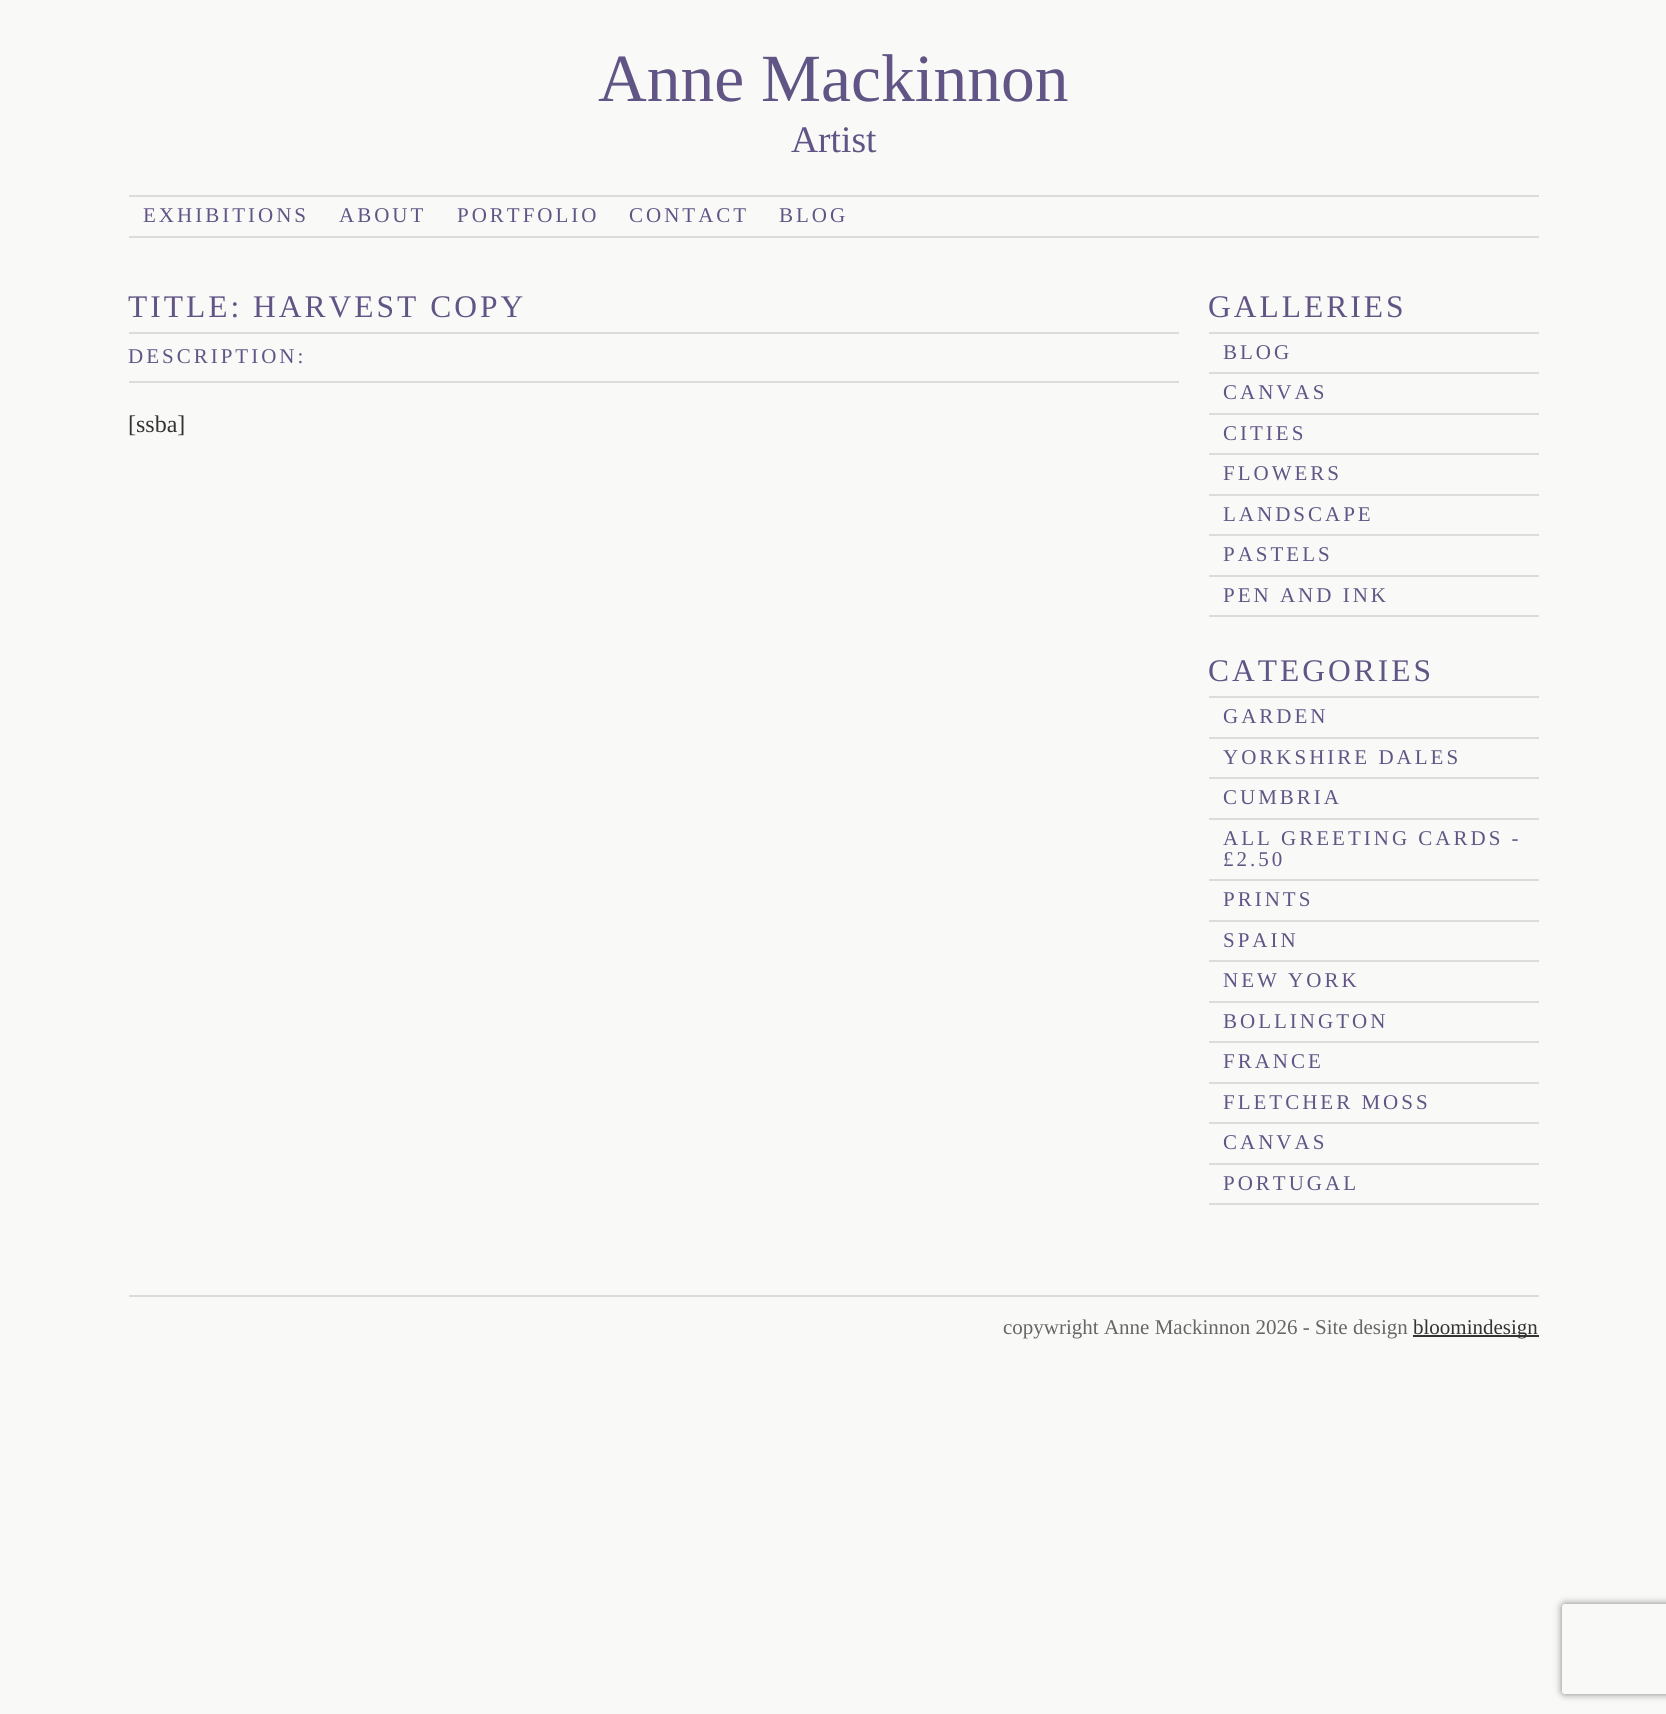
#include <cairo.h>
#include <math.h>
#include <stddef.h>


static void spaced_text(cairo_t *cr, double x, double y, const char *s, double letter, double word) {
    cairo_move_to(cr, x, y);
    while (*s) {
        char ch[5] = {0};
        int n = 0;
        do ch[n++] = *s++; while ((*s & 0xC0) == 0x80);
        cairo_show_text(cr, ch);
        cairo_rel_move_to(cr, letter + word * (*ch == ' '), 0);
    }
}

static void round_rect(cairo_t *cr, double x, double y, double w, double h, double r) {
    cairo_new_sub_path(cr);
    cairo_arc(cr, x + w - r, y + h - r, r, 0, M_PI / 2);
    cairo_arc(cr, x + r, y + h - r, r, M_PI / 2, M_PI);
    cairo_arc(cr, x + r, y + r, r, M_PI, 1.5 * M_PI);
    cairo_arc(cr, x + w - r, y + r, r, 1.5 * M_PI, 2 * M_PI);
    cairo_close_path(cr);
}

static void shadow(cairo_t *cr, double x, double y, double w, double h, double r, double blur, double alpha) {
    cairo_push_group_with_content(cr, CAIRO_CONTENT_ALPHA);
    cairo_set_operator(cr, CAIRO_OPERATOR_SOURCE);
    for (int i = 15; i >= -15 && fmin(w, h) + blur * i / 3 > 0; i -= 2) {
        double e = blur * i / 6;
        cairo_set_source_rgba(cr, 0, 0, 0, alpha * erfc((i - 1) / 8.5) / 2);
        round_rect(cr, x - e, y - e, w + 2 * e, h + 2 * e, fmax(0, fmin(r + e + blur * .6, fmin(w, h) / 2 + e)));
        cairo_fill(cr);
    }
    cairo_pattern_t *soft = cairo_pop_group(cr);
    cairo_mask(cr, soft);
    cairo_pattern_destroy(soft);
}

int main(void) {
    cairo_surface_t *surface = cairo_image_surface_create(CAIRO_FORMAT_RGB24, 1666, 1714);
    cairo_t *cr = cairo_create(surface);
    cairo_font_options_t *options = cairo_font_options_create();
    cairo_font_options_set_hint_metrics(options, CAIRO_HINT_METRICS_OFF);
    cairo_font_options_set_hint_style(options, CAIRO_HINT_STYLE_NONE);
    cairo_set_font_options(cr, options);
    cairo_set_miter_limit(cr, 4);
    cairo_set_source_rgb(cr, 0.976, 0.976, 0.965);
    cairo_paint(cr);
    cairo_select_font_face(cr, "Liberation Serif", CAIRO_FONT_SLANT_NORMAL, CAIRO_FONT_WEIGHT_NORMAL);
    cairo_set_font_size(cr, 67.5);
    cairo_set_source_rgb(cr, 0.38, 0.333, 0.525);
    cairo_move_to(cr, 598, 101);
    cairo_show_text(cr, "Anne Mackinnon");
    cairo_set_font_size(cr, 37.5);
    cairo_move_to(cr, 791, 152);
    cairo_show_text(cr, "Artist");
    cairo_set_source_rgb(cr, 0.867, 0.863, 0.859);
    cairo_rectangle(cr, 129, 195, 1410, 2);
    cairo_fill(cr);
    cairo_rectangle(cr, 129, 236, 1410, 2);
    cairo_fill(cr);
    cairo_set_font_size(cr, 21);
    cairo_set_source_rgb(cr, 0.38, 0.333, 0.525);
    spaced_text(cr, 143, 222, "EXHIBITIONS", 3, 0);
    spaced_text(cr, 339, 222, "ABOUT", 3, 0);
    spaced_text(cr, 457, 222, "PORTFOLIO", 3, 0);
    spaced_text(cr, 629, 222, "CONTACT", 3, 0);
    spaced_text(cr, 779, 222, "BLOG", 3, 0);
    cairo_set_source_rgb(cr, 0.867, 0.863, 0.859);
    cairo_rectangle(cr, 129, 332, 1050, 2);
    cairo_fill(cr);
    cairo_set_font_size(cr, 31.5);
    cairo_set_source_rgb(cr, 0.38, 0.333, 0.525);
    spaced_text(cr, 128, 317, "TITLE: HARVEST COPY", 3, 0);
    cairo_set_source_rgb(cr, 0.867, 0.863, 0.859);
    cairo_rectangle(cr, 129, 381, 1050, 2);
    cairo_fill(cr);
    cairo_set_font_size(cr, 21);
    cairo_set_source_rgb(cr, 0.38, 0.333, 0.525);
    spaced_text(cr, 128, 363, "DESCRIPTION:", 3, 0);
    cairo_set_font_size(cr, 24);
    cairo_set_source_rgb(cr, 0.2, 0.2, 0.2);
    cairo_move_to(cr, 128, 432);
    cairo_show_text(cr, "[ssba]");
    cairo_set_source_rgb(cr, 0.867, 0.863, 0.859);
    cairo_rectangle(cr, 1209, 332, 330, 2);
    cairo_fill(cr);
    cairo_set_font_size(cr, 31.5);
    cairo_set_source_rgb(cr, 0.38, 0.333, 0.525);
    spaced_text(cr, 1208, 317, "GALLERIES", 3, 0);
    cairo_set_source_rgb(cr, 0.867, 0.863, 0.859);
    cairo_rectangle(cr, 1209, 372, 330, 2);
    cairo_fill(cr);
    cairo_set_font_size(cr, 21);
    cairo_set_source_rgb(cr, 0.38, 0.333, 0.525);
    spaced_text(cr, 1223, 359, "BLOG", 3, 0);
    cairo_set_source_rgb(cr, 0.867, 0.863, 0.859);
    cairo_rectangle(cr, 1209, 413, 330, 2);
    cairo_fill(cr);
    cairo_set_source_rgb(cr, 0.38, 0.333, 0.525);
    spaced_text(cr, 1223, 399, "CANVAS", 3, 0);
    cairo_set_source_rgb(cr, 0.867, 0.863, 0.859);
    cairo_rectangle(cr, 1209, 453, 330, 2);
    cairo_fill(cr);
    cairo_set_source_rgb(cr, 0.38, 0.333, 0.525);
    spaced_text(cr, 1223, 440, "CITIES", 3, 0);
    cairo_set_source_rgb(cr, 0.867, 0.863, 0.859);
    cairo_rectangle(cr, 1209, 494, 330, 2);
    cairo_fill(cr);
    cairo_set_source_rgb(cr, 0.38, 0.333, 0.525);
    spaced_text(cr, 1223, 480, "FLOWERS", 3, 0);
    cairo_set_source_rgb(cr, 0.867, 0.863, 0.859);
    cairo_rectangle(cr, 1209, 534, 330, 2);
    cairo_fill(cr);
    cairo_set_source_rgb(cr, 0.38, 0.333, 0.525);
    spaced_text(cr, 1223, 521, "LANDSCAPE", 3, 0);
    cairo_set_source_rgb(cr, 0.867, 0.863, 0.859);
    cairo_rectangle(cr, 1209, 575, 330, 2);
    cairo_fill(cr);
    cairo_set_source_rgb(cr, 0.38, 0.333, 0.525);
    spaced_text(cr, 1223, 561, "PASTELS", 3, 0);
    cairo_set_source_rgb(cr, 0.867, 0.863, 0.859);
    cairo_rectangle(cr, 1209, 615, 330, 2);
    cairo_fill(cr);
    cairo_set_source_rgb(cr, 0.38, 0.333, 0.525);
    spaced_text(cr, 1223, 602, "PEN AND INK", 3, 0);
    cairo_set_source_rgb(cr, 0.867, 0.863, 0.859);
    cairo_rectangle(cr, 1209, 696, 330, 2);
    cairo_fill(cr);
    cairo_set_font_size(cr, 31.5);
    cairo_set_source_rgb(cr, 0.38, 0.333, 0.525);
    spaced_text(cr, 1208, 681, "CATEGORIES", 3, 0);
    cairo_set_source_rgb(cr, 0.867, 0.863, 0.859);
    cairo_rectangle(cr, 1209, 737, 330, 2);
    cairo_fill(cr);
    cairo_set_font_size(cr, 21);
    cairo_set_source_rgb(cr, 0.38, 0.333, 0.525);
    spaced_text(cr, 1223, 723, "GARDEN", 3, 0);
    cairo_set_source_rgb(cr, 0.867, 0.863, 0.859);
    cairo_rectangle(cr, 1209, 777, 330, 2);
    cairo_fill(cr);
    cairo_set_source_rgb(cr, 0.38, 0.333, 0.525);
    spaced_text(cr, 1223, 764, "YORKSHIRE DALES", 3, 0);
    cairo_set_source_rgb(cr, 0.867, 0.863, 0.859);
    cairo_rectangle(cr, 1209, 818, 330, 2);
    cairo_fill(cr);
    cairo_set_source_rgb(cr, 0.38, 0.333, 0.525);
    spaced_text(cr, 1223, 804, "CUMBRIA", 3, 0);
    cairo_set_source_rgb(cr, 0.867, 0.863, 0.859);
    cairo_rectangle(cr, 1209, 879, 330, 2);
    cairo_fill(cr);
    cairo_set_source_rgb(cr, 0.38, 0.333, 0.525);
    spaced_text(cr, 1223, 845, "ALL GREETING CARDS -", 3, 0);
    spaced_text(cr, 1223, 866, "£2.50", 3, 0);
    cairo_set_source_rgb(cr, 0.867, 0.863, 0.859);
    cairo_rectangle(cr, 1209, 920, 330, 2);
    cairo_fill(cr);
    cairo_set_source_rgb(cr, 0.38, 0.333, 0.525);
    spaced_text(cr, 1223, 906, "PRINTS", 3, 0);
    cairo_set_source_rgb(cr, 0.867, 0.863, 0.859);
    cairo_rectangle(cr, 1209, 960, 330, 2);
    cairo_fill(cr);
    cairo_set_source_rgb(cr, 0.38, 0.333, 0.525);
    spaced_text(cr, 1223, 947, "SPAIN", 3, 0);
    cairo_set_source_rgb(cr, 0.867, 0.863, 0.859);
    cairo_rectangle(cr, 1209, 1001, 330, 2);
    cairo_fill(cr);
    cairo_set_source_rgb(cr, 0.38, 0.333, 0.525);
    spaced_text(cr, 1223, 987, "NEW YORK", 3, 0);
    cairo_set_source_rgb(cr, 0.867, 0.863, 0.859);
    cairo_rectangle(cr, 1209, 1041, 330, 2);
    cairo_fill(cr);
    cairo_set_source_rgb(cr, 0.38, 0.333, 0.525);
    spaced_text(cr, 1223, 1028, "BOLLINGTON", 3, 0);
    cairo_set_source_rgb(cr, 0.867, 0.863, 0.859);
    cairo_rectangle(cr, 1209, 1082, 330, 2);
    cairo_fill(cr);
    cairo_set_source_rgb(cr, 0.38, 0.333, 0.525);
    spaced_text(cr, 1223, 1068, "FRANCE", 3, 0);
    cairo_set_source_rgb(cr, 0.867, 0.863, 0.859);
    cairo_rectangle(cr, 1209, 1122, 330, 2);
    cairo_fill(cr);
    cairo_set_source_rgb(cr, 0.38, 0.333, 0.525);
    spaced_text(cr, 1223, 1109, "FLETCHER MOSS", 3, 0);
    cairo_set_source_rgb(cr, 0.867, 0.863, 0.859);
    cairo_rectangle(cr, 1209, 1163, 330, 2);
    cairo_fill(cr);
    cairo_set_source_rgb(cr, 0.38, 0.333, 0.525);
    spaced_text(cr, 1223, 1149, "CANVAS", 3, 0);
    cairo_set_source_rgb(cr, 0.867, 0.863, 0.859);
    cairo_rectangle(cr, 1209, 1203, 330, 2);
    cairo_fill(cr);
    cairo_set_source_rgb(cr, 0.38, 0.333, 0.525);
    spaced_text(cr, 1223, 1190, "PORTUGAL", 3, 0);
    cairo_set_source_rgb(cr, 0.867, 0.863, 0.859);
    cairo_rectangle(cr, 129, 1295, 1410, 2);
    cairo_fill(cr);
    cairo_set_source_rgb(cr, 0.4, 0.4, 0.4);
    cairo_move_to(cr, 1003, 1334);
    cairo_show_text(cr, "copywright Anne Mackinnon 2026 - Site design");
    cairo_set_source_rgb(cr, 0.2, 0.2, 0.2);
    cairo_rectangle(cr, 1413, 1335, 126, 2);
    cairo_fill(cr);
    cairo_move_to(cr, 1413, 1334);
    cairo_show_text(cr, "bloomindesign");
    cairo_save(cr);
    cairo_set_fill_rule(cr, CAIRO_FILL_RULE_EVEN_ODD);
    cairo_new_path(cr);
    cairo_move_to(cr, 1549, 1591);
    cairo_line_to(cr, 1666, 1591);
    cairo_line_to(cr, 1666, 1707);
    cairo_line_to(cr, 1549, 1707);
    cairo_close_path(cr);
    cairo_move_to(cr, 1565, 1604);
    cairo_line_to(cr, 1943, 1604);
    cairo_curve_to(cr, 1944.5, 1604, 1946, 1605.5, 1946, 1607);
    cairo_line_to(cr, 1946, 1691);
    cairo_curve_to(cr, 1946, 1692.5, 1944.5, 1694, 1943, 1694);
    cairo_line_to(cr, 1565, 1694);
    cairo_curve_to(cr, 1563.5, 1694, 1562, 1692.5, 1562, 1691);
    cairo_line_to(cr, 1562, 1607);
    cairo_curve_to(cr, 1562, 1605.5, 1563.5, 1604, 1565, 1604);
    cairo_close_path(cr);
    cairo_clip(cr);
    cairo_set_source_rgb(cr, 0.502, 0.502, 0.502);
    shadow(cr, 1562, 1604, 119, 90, 3, 4, 1);
    cairo_restore(cr);
    cairo_surface_write_to_png(surface, "page.png");
    cairo_font_options_destroy(options);
    cairo_destroy(cr);
    cairo_surface_destroy(surface);
    return 0;
}
